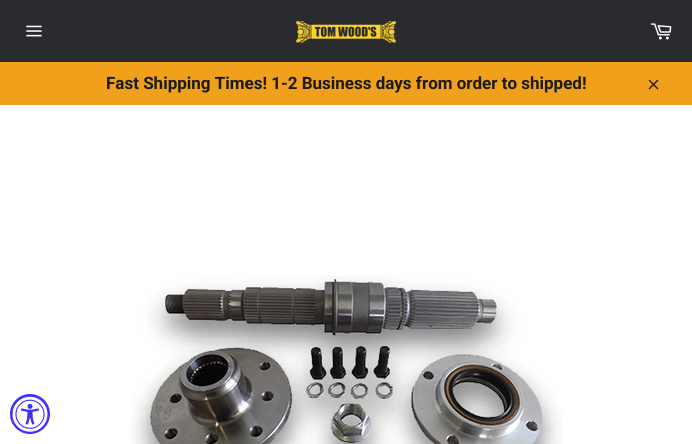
#include <cairo.h>
#include <math.h>
#include <stddef.h>


static void picture(cairo_t *cr, const char *path, double x, double y, double w, double h) {
    cairo_surface_t *image = cairo_image_surface_create_from_png(path);
    cairo_save(cr);
    cairo_set_source_surface(cr, image, x, y);
    cairo_rectangle(cr, x, y, w, h);
    cairo_fill(cr);
    cairo_restore(cr);
    cairo_surface_destroy(image);
}

int main(void) {
    cairo_surface_t *surface = cairo_image_surface_create(CAIRO_FORMAT_RGB24, 692, 444);
    cairo_t *cr = cairo_create(surface);
    cairo_font_options_t *options = cairo_font_options_create();
    cairo_font_options_set_hint_metrics(options, CAIRO_HINT_METRICS_OFF);
    cairo_font_options_set_hint_style(options, CAIRO_HINT_STYLE_NONE);
    cairo_set_font_options(cr, options);
    cairo_set_miter_limit(cr, 4);
    cairo_set_source_rgb(cr, 0.161, 0.169, 0.18);
    cairo_paint(cr);
    picture(cr, "img1.png", 26, 25, 16, 12);
    picture(cr, "img2.png", 296, 21, 100, 22);
    picture(cr, "img3.png", 650, 23, 22, 17);
    cairo_set_source_rgb(cr, 0.941, 0.627, 0.106);
    cairo_rectangle(cr, 0, 62, 692, 43);
    cairo_fill(cr);
    cairo_select_font_face(cr, "Roboto", CAIRO_FONT_SLANT_NORMAL, CAIRO_FONT_WEIGHT_BOLD);
    cairo_set_font_size(cr, 17);
    cairo_set_source_rgb(cr, 0.102, 0.102, 0.102);
    cairo_move_to(cr, 106, 89);
    cairo_show_text(cr, "Fast Shipping Times! 1-2 Business days from order to shipped!");
    picture(cr, "img4.png", 648, 79, 11, 11);
    cairo_set_source_rgb(cr, 1, 1, 1);
    cairo_rectangle(cr, 0, 105, 692, 339);
    cairo_fill(cr);
    picture(cr, "img5.png", 131, 275, 432, 169);
    cairo_set_source_rgb(cr, 0.255, 0.192, 0.988);
    cairo_arc(cr, 30, 414, 20, 0, 2 * M_PI);
    cairo_fill(cr);
    picture(cr, "img6.png", 12, 396, 36, 36);
    cairo_surface_write_to_png(surface, "page.png");
    cairo_font_options_destroy(options);
    cairo_destroy(cr);
    cairo_surface_destroy(surface);
    return 0;
}
